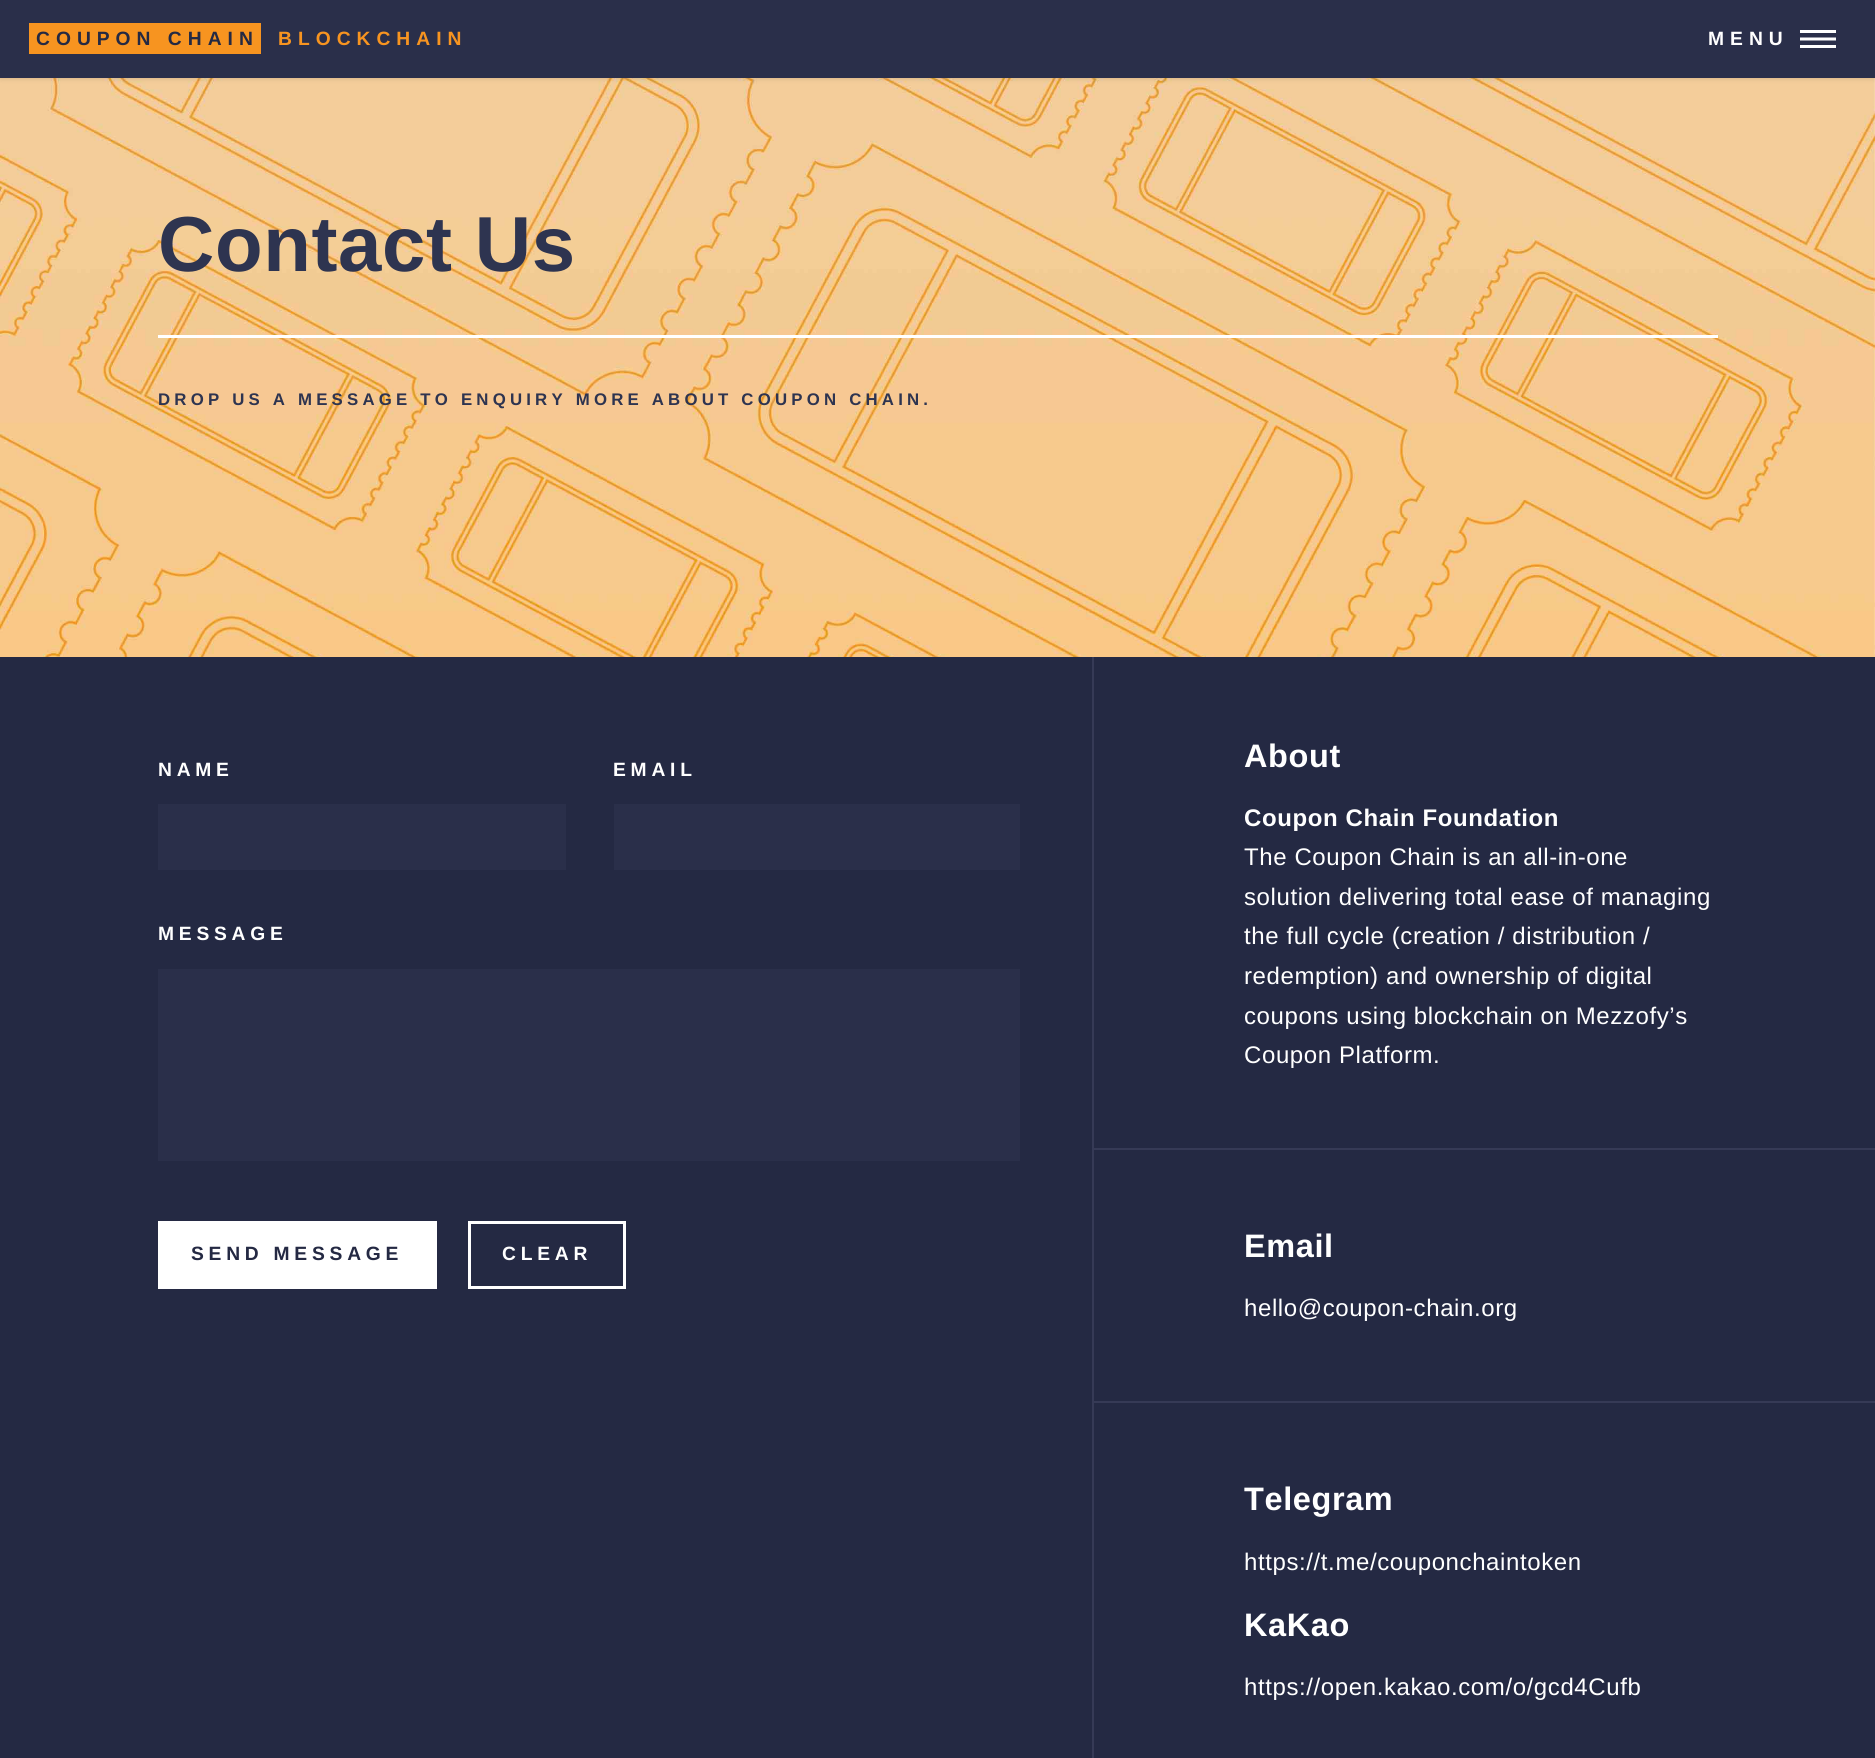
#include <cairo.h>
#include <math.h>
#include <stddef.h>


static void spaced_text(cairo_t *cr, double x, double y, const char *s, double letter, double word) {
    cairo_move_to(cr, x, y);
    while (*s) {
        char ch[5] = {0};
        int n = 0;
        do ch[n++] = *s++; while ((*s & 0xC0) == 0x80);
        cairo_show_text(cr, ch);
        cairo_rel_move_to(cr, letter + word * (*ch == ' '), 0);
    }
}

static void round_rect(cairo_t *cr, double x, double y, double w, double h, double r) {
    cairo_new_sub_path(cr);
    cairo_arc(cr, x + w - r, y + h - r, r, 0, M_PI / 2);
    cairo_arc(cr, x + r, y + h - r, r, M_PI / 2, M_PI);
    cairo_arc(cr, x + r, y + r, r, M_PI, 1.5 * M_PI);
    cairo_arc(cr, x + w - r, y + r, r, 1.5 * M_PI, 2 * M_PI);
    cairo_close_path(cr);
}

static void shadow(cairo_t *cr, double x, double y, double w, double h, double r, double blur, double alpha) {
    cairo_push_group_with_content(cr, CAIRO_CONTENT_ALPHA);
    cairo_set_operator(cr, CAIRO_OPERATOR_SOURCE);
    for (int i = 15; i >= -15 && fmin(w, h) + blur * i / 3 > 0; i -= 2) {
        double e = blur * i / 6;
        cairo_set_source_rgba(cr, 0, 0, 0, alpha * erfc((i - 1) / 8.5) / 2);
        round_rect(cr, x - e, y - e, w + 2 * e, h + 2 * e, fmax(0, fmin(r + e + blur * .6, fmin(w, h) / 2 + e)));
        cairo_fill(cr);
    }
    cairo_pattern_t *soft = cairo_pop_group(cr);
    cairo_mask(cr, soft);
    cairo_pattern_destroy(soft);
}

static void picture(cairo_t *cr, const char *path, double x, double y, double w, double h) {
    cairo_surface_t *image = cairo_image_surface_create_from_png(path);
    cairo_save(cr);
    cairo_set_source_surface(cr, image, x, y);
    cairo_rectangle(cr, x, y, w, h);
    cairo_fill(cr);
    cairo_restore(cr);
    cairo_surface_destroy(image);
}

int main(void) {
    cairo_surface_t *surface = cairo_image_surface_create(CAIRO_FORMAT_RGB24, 1875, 1758);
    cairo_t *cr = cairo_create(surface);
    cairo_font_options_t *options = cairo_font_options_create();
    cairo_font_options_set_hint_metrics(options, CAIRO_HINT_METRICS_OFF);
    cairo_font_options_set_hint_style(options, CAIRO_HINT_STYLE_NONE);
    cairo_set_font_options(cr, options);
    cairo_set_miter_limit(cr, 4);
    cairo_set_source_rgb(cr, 0.141, 0.161, 0.263);
    cairo_paint(cr);
    picture(cr, "img1.png", 0, 78, 1875, 579);
    cairo_set_source_rgb(cr, 0, 0, 0);
    shadow(cr, 0, 0, 1875, 78, 0, 3, 0.15);
    cairo_set_source_rgb(cr, 0.165, 0.184, 0.29);
    cairo_rectangle(cr, 0, 0, 1875, 78);
    cairo_fill(cr);
    cairo_set_source_rgb(cr, 0.965, 0.58, 0.125);
    cairo_rectangle(cr, 29, 23, 232, 31);
    cairo_fill(cr);
    cairo_select_font_face(cr, "Liberation Sans", CAIRO_FONT_SLANT_NORMAL, CAIRO_FONT_WEIGHT_BOLD);
    cairo_set_font_size(cr, 19.25);
    cairo_set_source_rgb(cr, 0.141, 0.161, 0.263);
    spaced_text(cr, 36, 45, "COUPON CHAIN", 6, 0);
    cairo_set_source_rgb(cr, 0.965, 0.58, 0.125);
    spaced_text(cr, 278, 45, "BLOCKCHAIN", 6, 0);
    cairo_set_source_rgb(cr, 1, 1, 1);
    spaced_text(cr, 1708, 45, "MENU", 6, 0);
    cairo_rectangle(cr, 1800, 30, 36, 3);
    cairo_fill(cr);
    cairo_rectangle(cr, 1800, 45, 36, 3);
    cairo_fill(cr);
    cairo_new_path(cr);
    cairo_move_to(cr, 1800, 39);
    cairo_line_to(cr, 1836, 39);
    cairo_set_line_width(cr, 3);
    cairo_stroke(cr);
    cairo_set_font_size(cr, 78);
    cairo_set_source_rgb(cr, 0.18, 0.204, 0.314);
    spaced_text(cr, 158, 271, "Contact Us", 0.6, 0);
    cairo_set_source_rgb(cr, 1, 1, 1);
    cairo_rectangle(cr, 158, 335, 1560, 3);
    cairo_fill(cr);
    cairo_set_font_size(cr, 16.8);
    cairo_set_source_rgb(cr, 0.18, 0.204, 0.314);
    spaced_text(cr, 158, 405, "DROP US A MESSAGE TO ENQUIRY MORE ABOUT COUPON CHAIN.", 4.2, 0);
    cairo_set_source_rgb(cr, 0.212, 0.227, 0.337);
    cairo_rectangle(cr, 1092, 657, 2, 1101);
    cairo_fill(cr);
    cairo_set_font_size(cr, 19.25);
    cairo_set_source_rgb(cr, 1, 1, 1);
    spaced_text(cr, 158, 776, "NAME", 4.75, 0);
    cairo_set_source_rgb(cr, 0.165, 0.184, 0.29);
    cairo_rectangle(cr, 158, 804, 408, 66);
    cairo_fill(cr);
    cairo_set_source_rgb(cr, 1, 1, 1);
    spaced_text(cr, 613, 776, "EMAIL", 4.75, 0);
    cairo_set_source_rgb(cr, 0.165, 0.184, 0.29);
    cairo_rectangle(cr, 614, 804, 406, 66);
    cairo_fill(cr);
    cairo_set_source_rgb(cr, 1, 1, 1);
    spaced_text(cr, 158, 940, "MESSAGE", 4.75, 0);
    cairo_set_source_rgb(cr, 0.165, 0.184, 0.29);
    cairo_rectangle(cr, 158, 969, 862, 192);
    cairo_fill(cr);
    cairo_set_source_rgb(cr, 1, 1, 1);
    cairo_rectangle(cr, 158, 1221, 279, 68);
    cairo_fill(cr);
    cairo_set_source_rgb(cr, 0.141, 0.161, 0.263);
    spaced_text(cr, 191, 1260, "SEND MESSAGE", 4.75, 0);
    cairo_rectangle(cr, 469.5, 1222.5, 155, 65);
    cairo_set_source_rgb(cr, 1, 1, 1);
    cairo_stroke(cr);
    spaced_text(cr, 502, 1260, "CLEAR", 4.75, 0);
    cairo_set_font_size(cr, 32.5);
    spaced_text(cr, 1244, 767, "About", 0.6, 0);
    cairo_set_font_size(cr, 24);
    spaced_text(cr, 1244, 826, "Coupon Chain Foundation", 0.6, 0);
    cairo_select_font_face(cr, "Liberation Sans", CAIRO_FONT_SLANT_NORMAL, CAIRO_FONT_WEIGHT_NORMAL);
    spaced_text(cr, 1244, 865, "The Coupon Chain is an all-in-one", 0.6, 0);
    spaced_text(cr, 1244, 905, "solution delivering total ease of managing", 0.6, 0);
    spaced_text(cr, 1244, 944, "the full cycle (creation / distribution /", 0.6, 0);
    spaced_text(cr, 1244, 984, "redemption) and ownership of digital", 0.6, 0);
    spaced_text(cr, 1244, 1024, "coupons using blockchain on Mezzofy’s", 0.6, 0);
    spaced_text(cr, 1244, 1063, "Coupon Platform.", 0.6, 0);
    cairo_set_source_rgb(cr, 0.212, 0.227, 0.337);
    cairo_rectangle(cr, 1094, 1148, 781, 2);
    cairo_fill(cr);
    cairo_select_font_face(cr, "Liberation Sans", CAIRO_FONT_SLANT_NORMAL, CAIRO_FONT_WEIGHT_BOLD);
    cairo_set_font_size(cr, 32.5);
    cairo_set_source_rgb(cr, 1, 1, 1);
    spaced_text(cr, 1244, 1257, "Email", 0.6, 0);
    cairo_select_font_face(cr, "Liberation Sans", CAIRO_FONT_SLANT_NORMAL, CAIRO_FONT_WEIGHT_NORMAL);
    cairo_set_font_size(cr, 24);
    spaced_text(cr, 1244, 1316, "hello@coupon-chain.org", 0.6, 0);
    cairo_set_source_rgb(cr, 0.212, 0.227, 0.337);
    cairo_rectangle(cr, 1094, 1401, 781, 2);
    cairo_fill(cr);
    cairo_select_font_face(cr, "Liberation Sans", CAIRO_FONT_SLANT_NORMAL, CAIRO_FONT_WEIGHT_BOLD);
    cairo_set_font_size(cr, 32.5);
    cairo_set_source_rgb(cr, 1, 1, 1);
    spaced_text(cr, 1244, 1510, "Telegram", 0.6, 0);
    cairo_select_font_face(cr, "Liberation Sans", CAIRO_FONT_SLANT_NORMAL, CAIRO_FONT_WEIGHT_NORMAL);
    cairo_set_font_size(cr, 24);
    spaced_text(cr, 1244, 1570, "https://t.me/couponchaintoken", 0.6, 0);
    cairo_select_font_face(cr, "Liberation Sans", CAIRO_FONT_SLANT_NORMAL, CAIRO_FONT_WEIGHT_BOLD);
    cairo_set_font_size(cr, 32.5);
    spaced_text(cr, 1244, 1636, "KaKao", 0.6, 0);
    cairo_select_font_face(cr, "Liberation Sans", CAIRO_FONT_SLANT_NORMAL, CAIRO_FONT_WEIGHT_NORMAL);
    cairo_set_font_size(cr, 24);
    spaced_text(cr, 1244, 1695, "https://open.kakao.com/o/gcd4Cufb", 0.6, 0);
    cairo_surface_write_to_png(surface, "page.png");
    cairo_font_options_destroy(options);
    cairo_destroy(cr);
    cairo_surface_destroy(surface);
    return 0;
}
